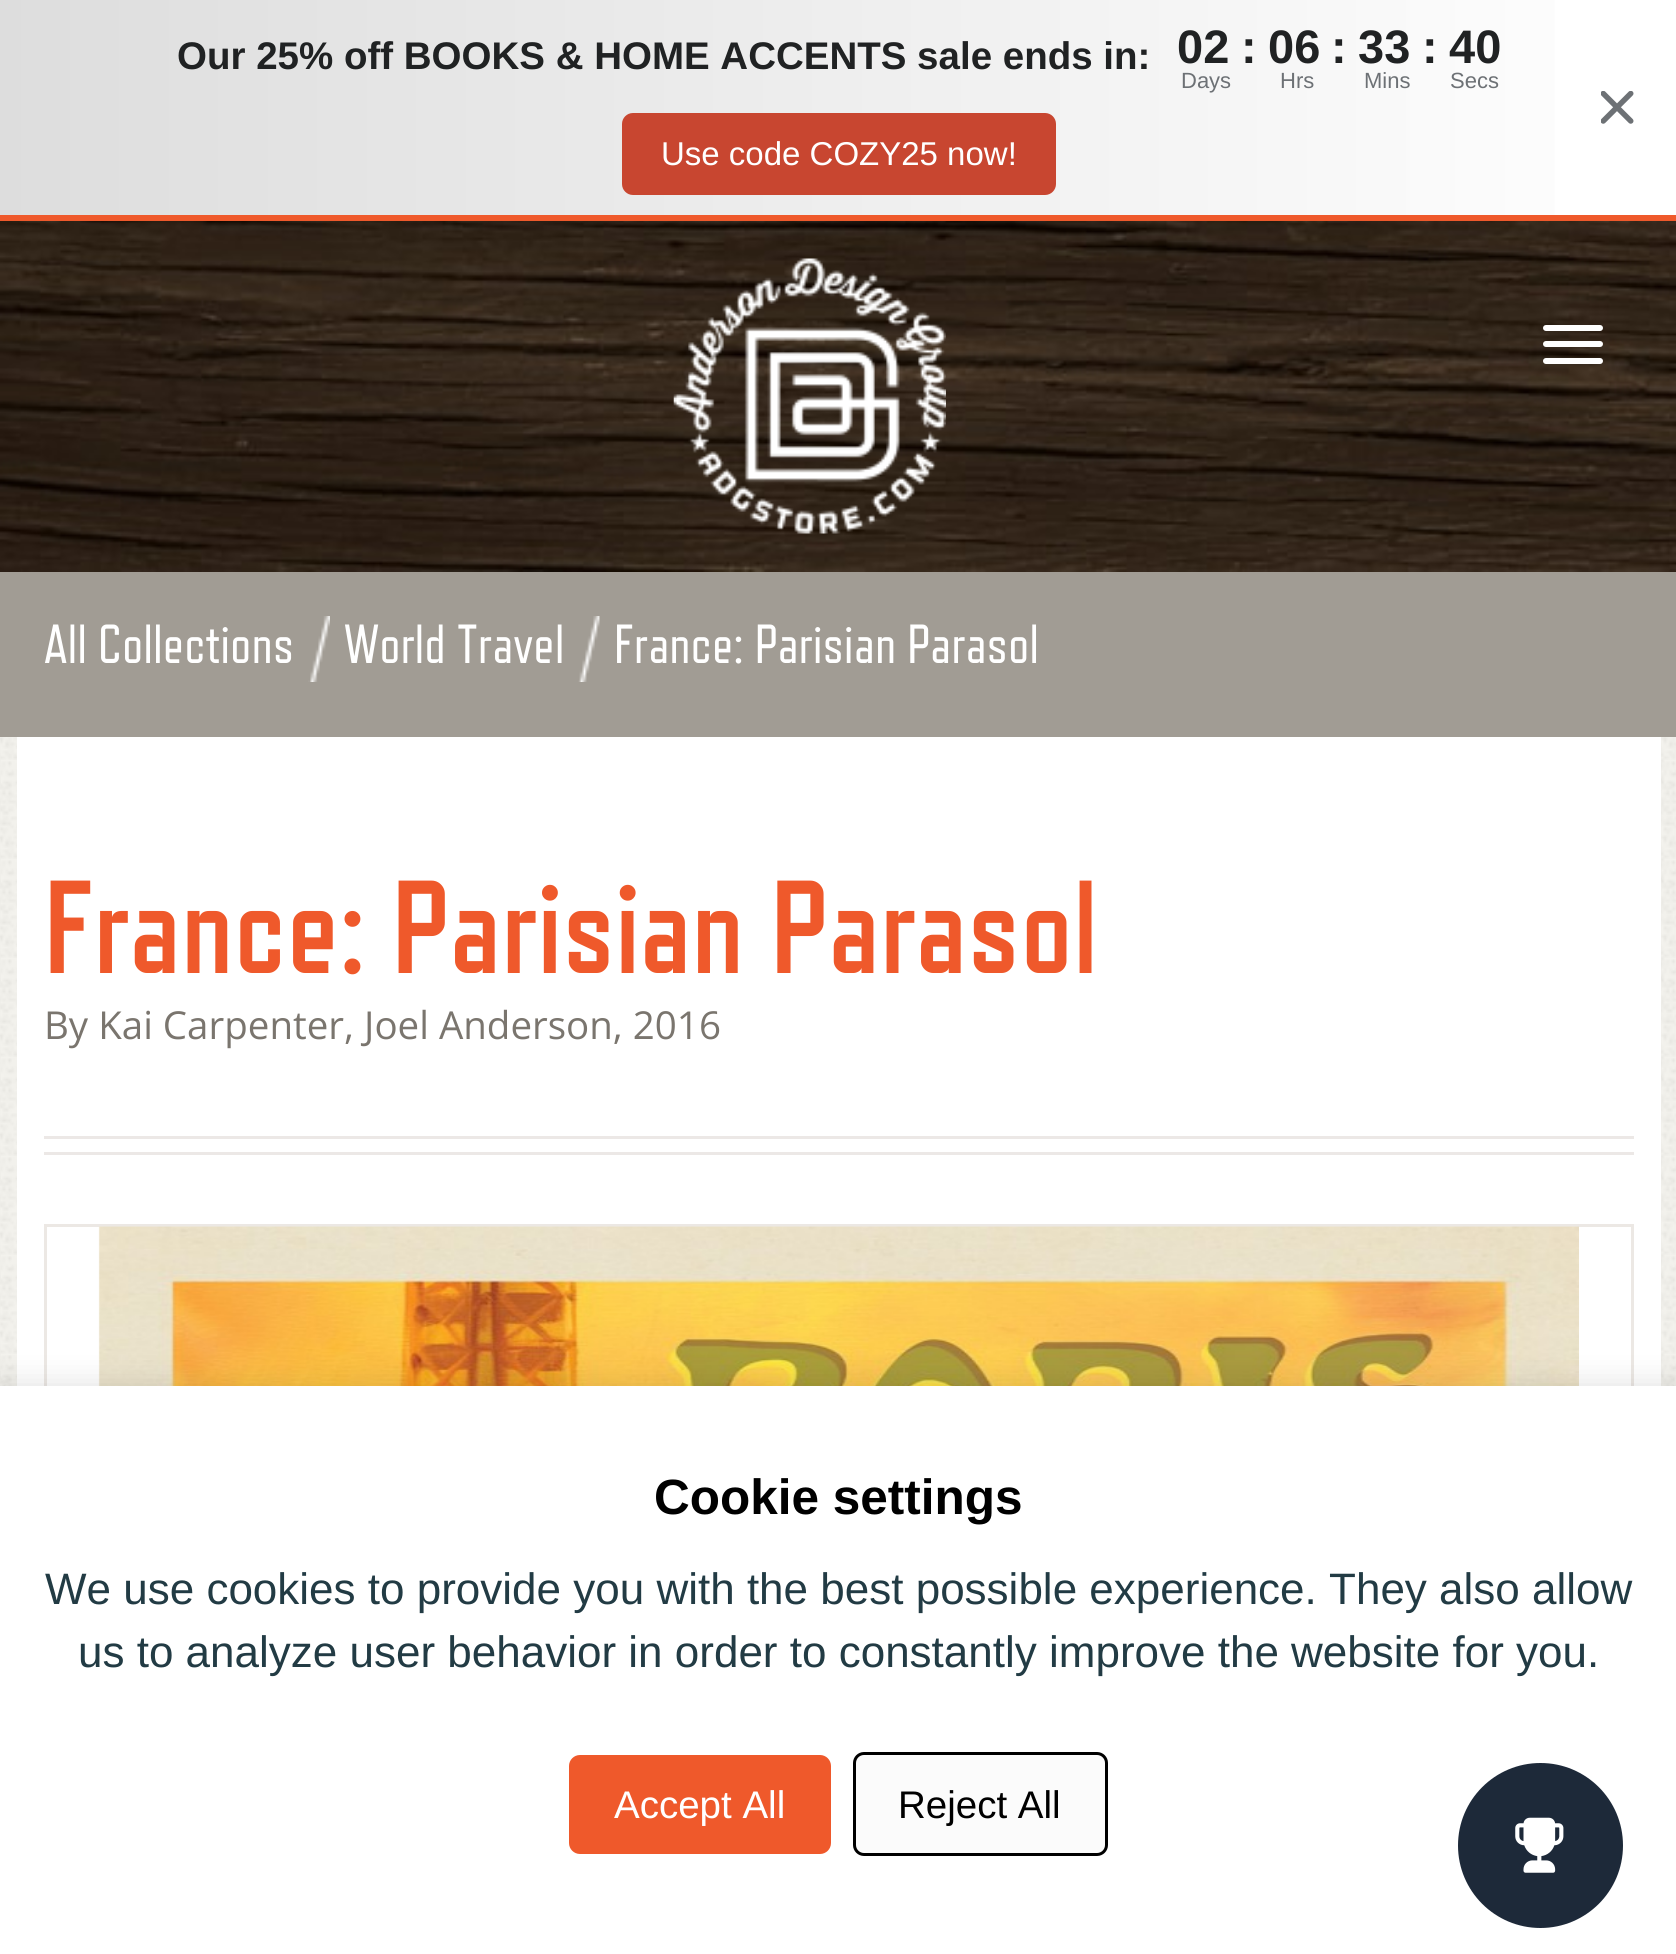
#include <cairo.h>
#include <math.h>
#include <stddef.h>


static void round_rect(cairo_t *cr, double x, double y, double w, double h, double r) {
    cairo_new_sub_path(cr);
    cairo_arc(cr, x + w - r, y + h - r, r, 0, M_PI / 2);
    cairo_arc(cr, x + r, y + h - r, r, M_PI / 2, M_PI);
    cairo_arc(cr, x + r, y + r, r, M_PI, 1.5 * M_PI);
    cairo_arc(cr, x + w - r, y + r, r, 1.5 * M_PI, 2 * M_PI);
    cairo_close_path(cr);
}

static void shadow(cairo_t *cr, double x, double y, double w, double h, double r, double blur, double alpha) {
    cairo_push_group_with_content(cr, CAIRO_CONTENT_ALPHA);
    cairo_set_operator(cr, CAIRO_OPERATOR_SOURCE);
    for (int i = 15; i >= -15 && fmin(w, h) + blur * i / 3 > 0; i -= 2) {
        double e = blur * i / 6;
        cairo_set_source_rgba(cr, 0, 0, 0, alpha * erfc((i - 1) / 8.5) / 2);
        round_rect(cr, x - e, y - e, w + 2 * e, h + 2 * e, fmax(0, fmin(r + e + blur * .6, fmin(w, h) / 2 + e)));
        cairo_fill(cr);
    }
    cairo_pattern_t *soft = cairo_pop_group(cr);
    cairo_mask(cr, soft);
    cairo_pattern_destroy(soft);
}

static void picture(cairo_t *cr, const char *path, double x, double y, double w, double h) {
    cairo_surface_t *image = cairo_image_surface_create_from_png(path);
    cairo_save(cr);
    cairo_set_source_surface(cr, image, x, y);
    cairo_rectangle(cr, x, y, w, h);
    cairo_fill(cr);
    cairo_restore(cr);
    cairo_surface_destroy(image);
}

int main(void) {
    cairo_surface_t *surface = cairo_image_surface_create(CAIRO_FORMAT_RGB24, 1676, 1954);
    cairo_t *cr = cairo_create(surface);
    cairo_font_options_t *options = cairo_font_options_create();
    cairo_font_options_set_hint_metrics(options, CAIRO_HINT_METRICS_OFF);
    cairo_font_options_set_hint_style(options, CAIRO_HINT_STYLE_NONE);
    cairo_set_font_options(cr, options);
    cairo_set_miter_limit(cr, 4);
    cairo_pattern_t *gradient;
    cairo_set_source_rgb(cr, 1, 1, 1);
    cairo_paint(cr);
    gradient = cairo_pattern_create_linear(0, 107, 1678, 107);
    cairo_pattern_add_color_stop_rgba(gradient, 0, 0.867, 0.867, 0.867, 1);
    cairo_pattern_add_color_stop_rgba(gradient, 1, 1, 1, 1, 1);
    cairo_set_source(cr, gradient);
    cairo_pattern_destroy(gradient);
    cairo_rectangle(cr, 0, 0, 1555, 215);
    cairo_fill(cr);
    cairo_select_font_face(cr, "Liberation Sans", CAIRO_FONT_SLANT_NORMAL, CAIRO_FONT_WEIGHT_BOLD);
    cairo_set_font_size(cr, 38.5);
    cairo_set_source_rgb(cr, 0.125, 0.133, 0.137);
    cairo_move_to(cr, 177, 69);
    cairo_show_text(cr, "Our 25% off BOOKS & HOME ACCENTS sale ends in:");
    cairo_set_font_size(cr, 47);
    cairo_move_to(cr, 1177, 63);
    cairo_show_text(cr, "02");
    cairo_move_to(cr, 1241, 63);
    cairo_show_text(cr, ":");
    cairo_move_to(cr, 1268, 63);
    cairo_show_text(cr, "06");
    cairo_move_to(cr, 1331, 63);
    cairo_show_text(cr, ":");
    cairo_move_to(cr, 1358, 63);
    cairo_show_text(cr, "33");
    cairo_move_to(cr, 1422, 63);
    cairo_show_text(cr, ":");
    cairo_move_to(cr, 1449, 63);
    cairo_show_text(cr, "40");
    cairo_select_font_face(cr, "Liberation Sans", CAIRO_FONT_SLANT_NORMAL, CAIRO_FONT_WEIGHT_NORMAL);
    cairo_set_font_size(cr, 22);
    cairo_set_source_rgb(cr, 0.427, 0.443, 0.459);
    cairo_move_to(cr, 1181, 88);
    cairo_show_text(cr, "Days");
    cairo_move_to(cr, 1280, 88);
    cairo_show_text(cr, "Hrs");
    cairo_move_to(cr, 1364, 88);
    cairo_show_text(cr, "Mins");
    cairo_move_to(cr, 1450, 88);
    cairo_show_text(cr, "Secs");
    picture(cr, "img1.png", 1601, 91, 33, 33);
    cairo_set_source_rgb(cr, 0.784, 0.275, 0.188);
    round_rect(cr, 622, 113, 434, 82, 11);
    cairo_fill(cr);
    cairo_set_font_size(cr, 33);
    cairo_set_source_rgb(cr, 1, 1, 1);
    cairo_move_to(cr, 661, 165);
    cairo_show_text(cr, "Use code COZY25 now!");
    picture(cr, "img2.png", 0, 221, 1676, 351);
    cairo_set_source_rgb(cr, 0.937, 0.349, 0.169);
    cairo_rectangle(cr, 0, 215, 1676, 6);
    cairo_fill(cr);
    picture(cr, "img3.png", 673, 258, 273, 276);
    cairo_set_source_rgb(cr, 1, 1, 1);
    round_rect(cr, 1543, 325, 60, 6, 3);
    cairo_fill(cr);
    round_rect(cr, 1543, 341, 60, 6, 3);
    cairo_fill(cr);
    round_rect(cr, 1543, 358, 60, 6, 3);
    cairo_fill(cr);
    cairo_set_source_rgb(cr, 0.631, 0.612, 0.58);
    cairo_rectangle(cr, 0, 572, 1676, 165);
    cairo_fill(cr);
    picture(cr, "img4.png", 308, 616, 22, 66);
    cairo_select_font_face(cr, "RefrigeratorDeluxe", CAIRO_FONT_SLANT_NORMAL, CAIRO_FONT_WEIGHT_NORMAL);
    cairo_set_font_size(cr, 55);
    cairo_set_source_rgb(cr, 1, 1, 1);
    cairo_move_to(cr, 44, 663);
    cairo_show_text(cr, "All Collections");
    picture(cr, "img5.png", 578, 616, 22, 66);
    cairo_move_to(cr, 344, 663);
    cairo_show_text(cr, "World Travel");
    cairo_move_to(cr, 614, 663);
    cairo_show_text(cr, "France: Parisian Parasol");
    picture(cr, "img6.png", 0, 737, 1676, 649);
    cairo_rectangle(cr, 17, 737, 1644, 649);
    cairo_fill(cr);
    cairo_select_font_face(cr, "RefrigeratorDeluxe", CAIRO_FONT_SLANT_NORMAL, CAIRO_FONT_WEIGHT_BOLD);
    cairo_set_font_size(cr, 132);
    cairo_set_source_rgb(cr, 0.937, 0.349, 0.169);
    cairo_move_to(cr, 44, 973);
    cairo_show_text(cr, "France: Parisian Parasol");
    cairo_select_font_face(cr, "Open Sans", CAIRO_FONT_SLANT_NORMAL, CAIRO_FONT_WEIGHT_NORMAL);
    cairo_set_font_size(cr, 38.5);
    cairo_set_source_rgb(cr, 0.478, 0.459, 0.431);
    cairo_move_to(cr, 44, 1039);
    cairo_show_text(cr, "By Kai Carpenter, Joel Anderson, 2016");
    cairo_set_source_rgb(cr, 0.922, 0.91, 0.902);
    cairo_rectangle(cr, 44, 1136, 1590, 3);
    cairo_fill(cr);
    cairo_rectangle(cr, 44, 1152, 1590, 3);
    cairo_fill(cr);
    cairo_rectangle(cr, 45.5, 1225.5, 1587, 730);
    cairo_set_source_rgb(cr, 0.922, 0.91, 0.894);
    cairo_set_line_width(cr, 3);
    cairo_stroke(cr);
    picture(cr, "img7.png", 98, 1226, 1481, 160);
    cairo_set_source_rgb(cr, 0, 0, 0);
    shadow(cr, 0, 1381, 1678, 569, 0, 14, 0.1);
    cairo_set_source_rgb(cr, 1, 1, 1);
    cairo_rectangle(cr, 0, 1386, 1676, 568);
    cairo_fill(cr);
    cairo_select_font_face(cr, "Liberation Sans", CAIRO_FONT_SLANT_NORMAL, CAIRO_FONT_WEIGHT_BOLD);
    cairo_set_font_size(cr, 49.5);
    cairo_set_source_rgb(cr, 0, 0, 0);
    cairo_move_to(cr, 654, 1514);
    cairo_show_text(cr, "Cookie settings");
    cairo_select_font_face(cr, "Liberation Sans", CAIRO_FONT_SLANT_NORMAL, CAIRO_FONT_WEIGHT_NORMAL);
    cairo_set_font_size(cr, 44);
    cairo_set_source_rgb(cr, 0.133, 0.231, 0.267);
    cairo_move_to(cr, 45, 1604);
    cairo_show_text(cr, "We use cookies to provide you with the best possible experience. They also allow");
    cairo_move_to(cr, 78, 1667);
    cairo_show_text(cr, "us to analyze user behavior in order to constantly improve the website for you.");
    cairo_set_source_rgb(cr, 0.937, 0.349, 0.169);
    round_rect(cr, 569, 1755, 262, 99, 11);
    cairo_fill(cr);
    cairo_set_font_size(cr, 38.5);
    cairo_set_source_rgb(cr, 1, 1, 1);
    cairo_move_to(cr, 614, 1818);
    cairo_show_text(cr, "Accept All");
    cairo_set_source_rgb(cr, 0.984, 0.984, 0.984);
    round_rect(cr, 854.5, 1753.5, 252, 101, 9.5);
    cairo_fill_preserve(cr);
    cairo_set_source_rgb(cr, 0, 0, 0);
    cairo_stroke(cr);
    cairo_move_to(cr, 898, 1818);
    cairo_show_text(cr, "Reject All");
    cairo_set_source_rgb(cr, 0.114, 0.161, 0.224);
    cairo_new_path(cr);
    cairo_arc(cr, 1540.5, 1845.5, 82.5, 0, 2 * M_PI);
    cairo_fill(cr);
    picture(cr, "img8.png", 1515, 1817, 49, 56);
    cairo_surface_write_to_png(surface, "page.png");
    cairo_font_options_destroy(options);
    cairo_destroy(cr);
    cairo_surface_destroy(surface);
    return 0;
}
